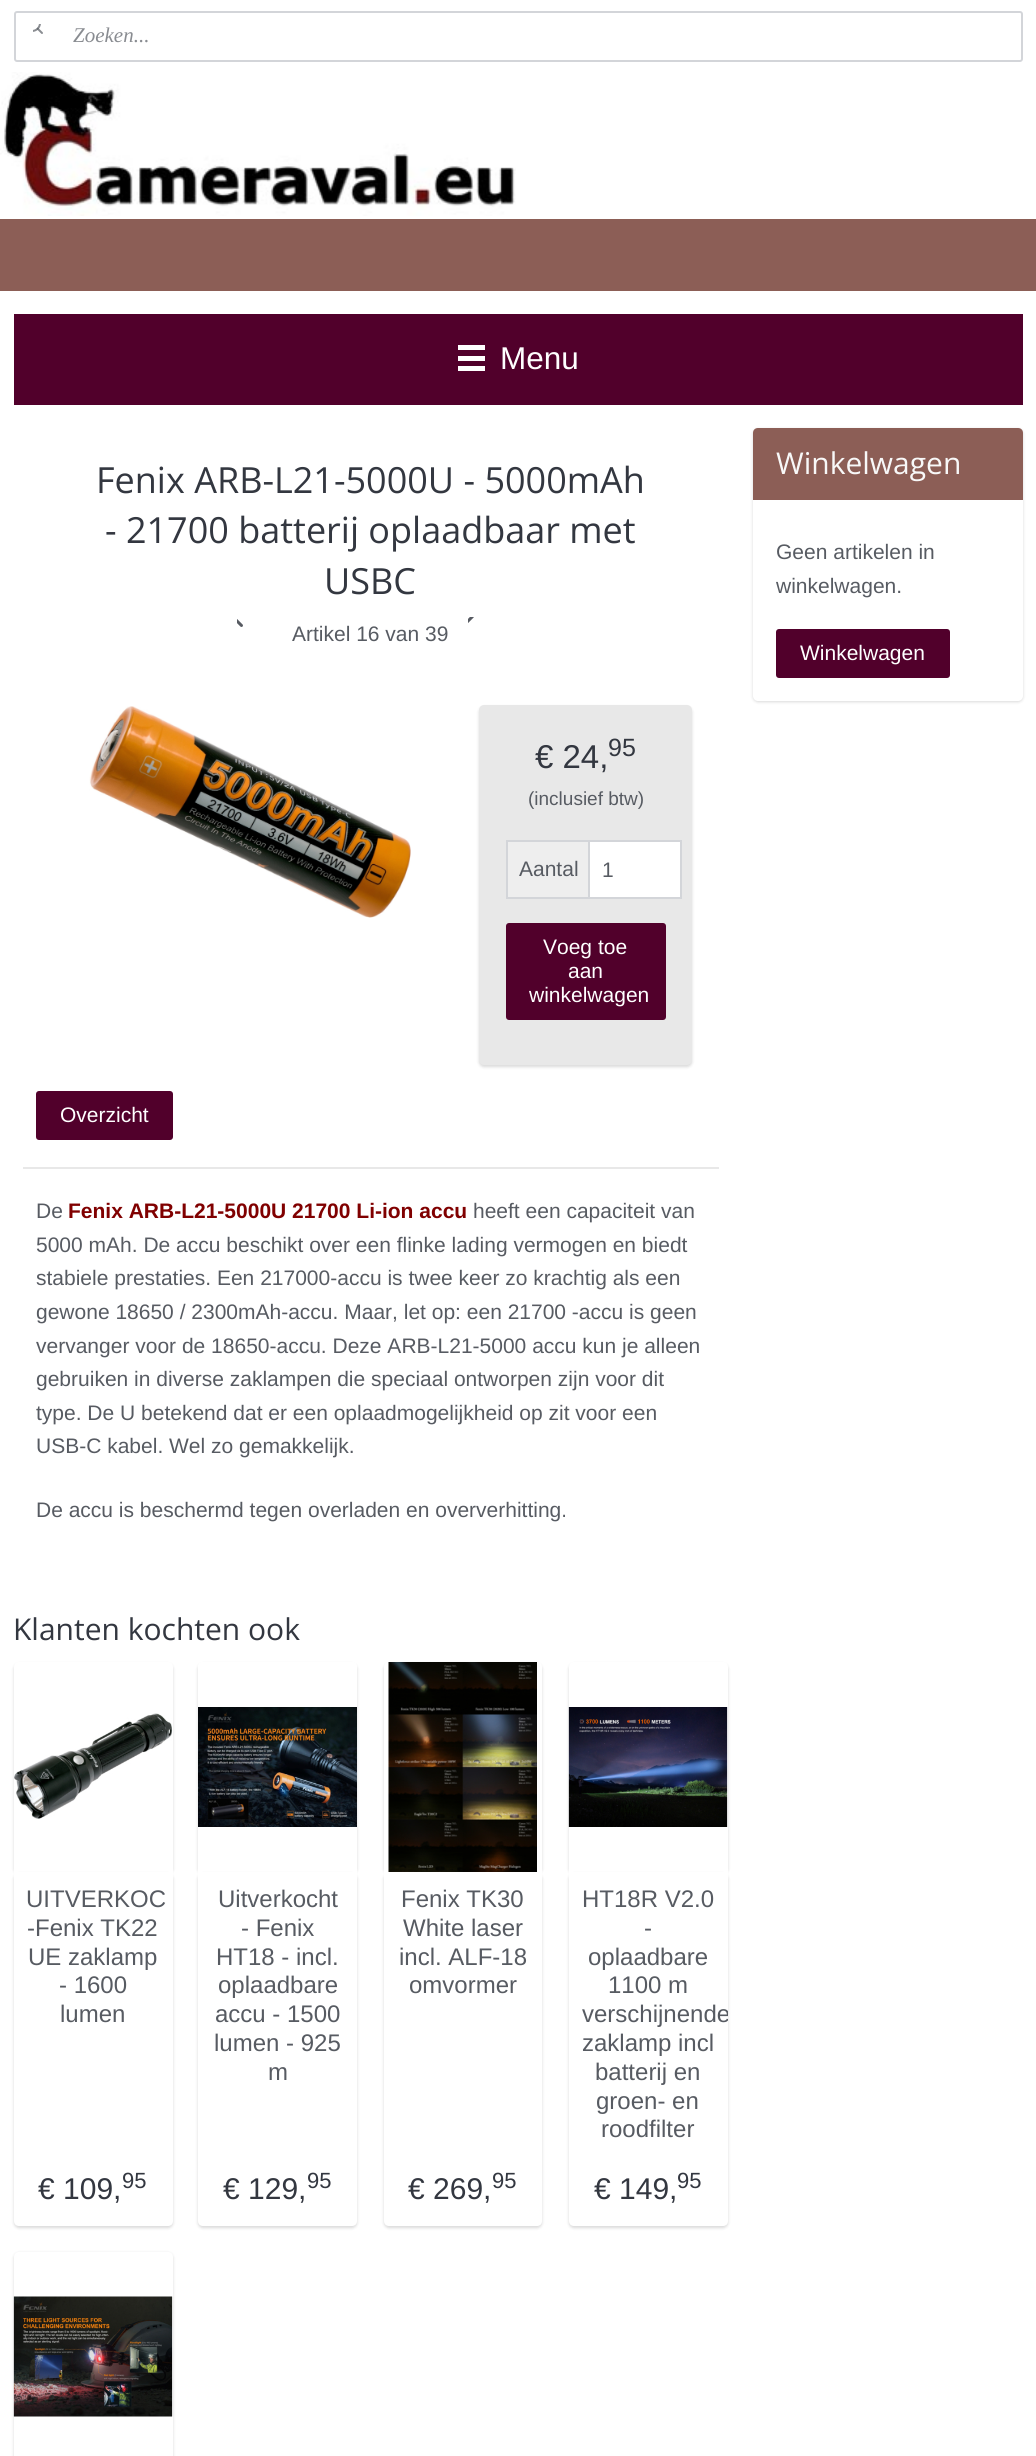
#include <cairo.h>
#include <math.h>
#include <stddef.h>


static void round_rect(cairo_t *cr, double x, double y, double w, double h, double r) {
    cairo_new_sub_path(cr);
    cairo_arc(cr, x + w - r, y + h - r, r, 0, M_PI / 2);
    cairo_arc(cr, x + r, y + h - r, r, M_PI / 2, M_PI);
    cairo_arc(cr, x + r, y + r, r, M_PI, 1.5 * M_PI);
    cairo_arc(cr, x + w - r, y + r, r, 1.5 * M_PI, 2 * M_PI);
    cairo_close_path(cr);
}

static void shadow(cairo_t *cr, double x, double y, double w, double h, double r, double blur, double alpha) {
    cairo_push_group_with_content(cr, CAIRO_CONTENT_ALPHA);
    cairo_set_operator(cr, CAIRO_OPERATOR_SOURCE);
    for (int i = 15; i >= -15 && fmin(w, h) + blur * i / 3 > 0; i -= 2) {
        double e = blur * i / 6;
        cairo_set_source_rgba(cr, 0, 0, 0, alpha * erfc((i - 1) / 8.5) / 2);
        round_rect(cr, x - e, y - e, w + 2 * e, h + 2 * e, fmax(0, fmin(r + e + blur * .6, fmin(w, h) / 2 + e)));
        cairo_fill(cr);
    }
    cairo_pattern_t *soft = cairo_pop_group(cr);
    cairo_mask(cr, soft);
    cairo_pattern_destroy(soft);
}

static void picture(cairo_t *cr, const char *path, double x, double y, double w, double h) {
    cairo_surface_t *image = cairo_image_surface_create_from_png(path);
    cairo_save(cr);
    cairo_set_source_surface(cr, image, x, y);
    cairo_rectangle(cr, x, y, w, h);
    cairo_fill(cr);
    cairo_restore(cr);
    cairo_surface_destroy(image);
}

int main(void) {
    cairo_surface_t *surface = cairo_image_surface_create(CAIRO_FORMAT_RGB24, 1036, 2456);
    cairo_t *cr = cairo_create(surface);
    cairo_font_options_t *options = cairo_font_options_create();
    cairo_font_options_set_hint_metrics(options, CAIRO_HINT_METRICS_OFF);
    cairo_font_options_set_hint_style(options, CAIRO_HINT_STYLE_NONE);
    cairo_set_font_options(cr, options);
    cairo_set_miter_limit(cr, 4);
    cairo_set_source_rgb(cr, 1, 1, 1);
    cairo_paint(cr);
    round_rect(cr, 15, 12, 1007, 49, 2);
    cairo_set_source_rgb(cr, 0.827, 0.835, 0.851);
    cairo_stroke(cr);
    picture(cr, "img1.png", 33, 24, 10, 10);
    cairo_select_font_face(cr, "Liberation Serif", CAIRO_FONT_SLANT_ITALIC, CAIRO_FONT_WEIGHT_NORMAL);
    cairo_set_font_size(cr, 21);
    cairo_set_source_rgb(cr, 0.537, 0.549, 0.569);
    cairo_move_to(cr, 73, 42);
    cairo_show_text(cr, "Zoeken...");
    picture(cr, "img2.png", 0, 72, 516, 144);
    cairo_set_source_rgb(cr, 0.549, 0.369, 0.337);
    cairo_rectangle(cr, 0, 219, 1036, 72);
    cairo_fill(cr);
    cairo_set_source_rgb(cr, 0.318, 0, 0.169);
    cairo_rectangle(cr, 14, 314, 1009, 91);
    cairo_fill(cr);
    cairo_set_source_rgb(cr, 1, 1, 1);
    cairo_rectangle(cr, 458, 356, 27, 5);
    cairo_fill(cr);
    cairo_rectangle(cr, 458, 345, 27, 5);
    cairo_fill(cr);
    cairo_rectangle(cr, 458, 366, 27, 5);
    cairo_fill(cr);
    cairo_select_font_face(cr, "Liberation Sans", CAIRO_FONT_SLANT_NORMAL, CAIRO_FONT_WEIGHT_NORMAL);
    cairo_set_font_size(cr, 31.5);
    cairo_move_to(cr, 500, 369);
    cairo_show_text(cr, "Menu");
    cairo_select_font_face(cr, "Open Sans", CAIRO_FONT_SLANT_NORMAL, CAIRO_FONT_WEIGHT_NORMAL);
    cairo_set_font_size(cr, 36);
    cairo_set_source_rgb(cr, 0.2, 0.216, 0.251);
    cairo_move_to(cr, 96, 493);
    cairo_show_text(cr, "Fenix ARB-L21-5000U - 5000mAh");
    cairo_move_to(cr, 105, 543);
    cairo_show_text(cr, "- 21700 batterij oplaadbaar met");
    cairo_move_to(cr, 324, 594);
    cairo_show_text(cr, "USBC");
    picture(cr, "img3.png", 237, 619, 6, 8);
    picture(cr, "img4.png", 468, 617, 6, 6);
    cairo_select_font_face(cr, "Liberation Sans", CAIRO_FONT_SLANT_NORMAL, CAIRO_FONT_WEIGHT_NORMAL);
    cairo_set_font_size(cr, 21);
    cairo_set_source_rgb(cr, 0.341, 0.357, 0.384);
    cairo_move_to(cr, 292, 641);
    cairo_show_text(cr, "Artikel 16 van 39");
    picture(cr, "img5.png", 89, 706, 322, 212);
    cairo_set_source_rgb(cr, 0, 0, 0);
    shadow(cr, 479, 707, 213, 360, 5, 1.5, 0.15);
    cairo_set_source_rgb(cr, 0.91, 0.91, 0.91);
    round_rect(cr, 479, 705, 213, 360, 5);
    cairo_fill(cr);
    cairo_set_font_size(cr, 33);
    cairo_set_source_rgb(cr, 0.2, 0.216, 0.251);
    cairo_move_to(cr, 535, 768);
    cairo_show_text(cr, "€ 24,");
    cairo_set_font_size(cr, 25);
    cairo_move_to(cr, 608, 756);
    cairo_show_text(cr, "95");
    cairo_set_font_size(cr, 19);
    cairo_set_source_rgb(cr, 0.341, 0.357, 0.384);
    cairo_move_to(cr, 528, 805);
    cairo_show_text(cr, "(inclusief btw)");
    cairo_set_source_rgb(cr, 1, 1, 1);
    cairo_rectangle(cr, 590, 842, 90, 55);
    cairo_fill(cr);
    cairo_set_source_rgb(cr, 0.827, 0.835, 0.851);
    cairo_rectangle(cr, 506, 840, 175, 2);
    cairo_fill(cr);
    cairo_rectangle(cr, 680, 840, 2, 59);
    cairo_fill(cr);
    cairo_rectangle(cr, 588, 842, 2, 57);
    cairo_fill(cr);
    cairo_rectangle(cr, 506, 897, 175, 2);
    cairo_fill(cr);
    cairo_rectangle(cr, 506, 840, 2, 59);
    cairo_fill(cr);
    cairo_set_source_rgb(cr, 0.933, 0.933, 0.933);
    cairo_rectangle(cr, 508, 842, 80, 55);
    cairo_fill(cr);
    cairo_set_font_size(cr, 21);
    cairo_set_source_rgb(cr, 0.341, 0.357, 0.384);
    cairo_move_to(cr, 519, 876);
    cairo_show_text(cr, "Aantal");
    cairo_move_to(cr, 602, 877);
    cairo_show_text(cr, "1");
    cairo_set_source_rgb(cr, 0.318, 0, 0.169);
    round_rect(cr, 506, 923, 160, 97, 3);
    cairo_fill(cr);
    cairo_set_source_rgb(cr, 1, 1, 1);
    cairo_move_to(cr, 543, 954);
    cairo_show_text(cr, "Voeg toe");
    cairo_move_to(cr, 568, 978);
    cairo_show_text(cr, "aan");
    cairo_move_to(cr, 529, 1002);
    cairo_show_text(cr, "winkelwagen");
    cairo_set_source_rgb(cr, 0.318, 0, 0.169);
    round_rect(cr, 36, 1091, 137, 49, 3);
    cairo_fill(cr);
    cairo_set_source_rgb(cr, 1, 1, 1);
    cairo_move_to(cr, 60, 1122);
    cairo_show_text(cr, "Overzicht");
    cairo_set_source_rgb(cr, 0.91, 0.91, 0.91);
    cairo_rectangle(cr, 23, 1167, 696, 2);
    cairo_fill(cr);
    cairo_set_source_rgb(cr, 0.341, 0.357, 0.384);
    cairo_move_to(cr, 36, 1218);
    cairo_show_text(cr, "De");
    cairo_select_font_face(cr, "Liberation Sans", CAIRO_FONT_SLANT_NORMAL, CAIRO_FONT_WEIGHT_BOLD);
    cairo_set_source_rgb(cr, 0.502, 0, 0);
    cairo_move_to(cr, 68, 1218);
    cairo_show_text(cr, "Fenix ARB-L21-5000U 21700 Li-ion accu");
    cairo_select_font_face(cr, "Liberation Sans", CAIRO_FONT_SLANT_NORMAL, CAIRO_FONT_WEIGHT_NORMAL);
    cairo_set_source_rgb(cr, 0.341, 0.357, 0.384);
    cairo_move_to(cr, 473, 1218);
    cairo_show_text(cr, "heeft een capaciteit van");
    cairo_move_to(cr, 36, 1252);
    cairo_show_text(cr, "5000 mAh. De accu beschikt over een flinke lading vermogen en biedt");
    cairo_move_to(cr, 36, 1285);
    cairo_show_text(cr, "stabiele prestaties. Een 217000-accu is twee keer zo krachtig als een");
    cairo_move_to(cr, 36, 1319);
    cairo_show_text(cr, "gewone 18650 / 2300mAh-accu. Maar, let op: een 21700 -accu is geen");
    cairo_move_to(cr, 36, 1353);
    cairo_show_text(cr, "vervanger voor de 18650-accu. Deze ARB-L21-5000 accu kun je alleen");
    cairo_move_to(cr, 36, 1386);
    cairo_show_text(cr, "gebruiken in diverse zaklampen die speciaal ontworpen zijn voor dit");
    cairo_move_to(cr, 36, 1420);
    cairo_show_text(cr, "type. De U betekend dat er een oplaadmogelijkheid op zit voor een");
    cairo_move_to(cr, 36, 1453);
    cairo_show_text(cr, "USB-C kabel. Wel zo gemakkelijk.");
    cairo_move_to(cr, 36, 1517);
    cairo_show_text(cr, "De accu is beschermd tegen overladen en oververhitting.");
    cairo_select_font_face(cr, "Open Sans", CAIRO_FONT_SLANT_NORMAL, CAIRO_FONT_WEIGHT_NORMAL);
    cairo_set_font_size(cr, 30);
    cairo_set_source_rgb(cr, 0.2, 0.216, 0.251);
    cairo_move_to(cr, 13, 1640);
    cairo_show_text(cr, "Klanten kochten ook");
    cairo_set_source_rgb(cr, 0, 0, 0);
    shadow(cr, 14, 1664, 159, 210, 5, 1.5, 0.15);
    cairo_set_source_rgb(cr, 1, 1, 1);
    cairo_new_path(cr);
    cairo_move_to(cr, 19, 1662);
    cairo_line_to(cr, 168, 1662);
    cairo_curve_to(cr, 171, 1662, 173, 1664, 173, 1667);
    cairo_line_to(cr, 173, 1872);
    cairo_line_to(cr, 14, 1872);
    cairo_line_to(cr, 14, 1667);
    cairo_curve_to(cr, 14, 1664, 16, 1662, 19, 1662);
    cairo_close_path(cr);
    cairo_fill(cr);
    picture(cr, "img6.png", 14, 1713, 159, 106);
    cairo_set_source_rgb(cr, 0, 0, 0);
    shadow(cr, 14, 1874, 159, 354, 5, 1.5, 0.15);
    cairo_set_source_rgb(cr, 1, 1, 1);
    cairo_new_path(cr);
    cairo_move_to(cr, 14, 1872);
    cairo_line_to(cr, 173, 1872);
    cairo_line_to(cr, 173, 2221);
    cairo_curve_to(cr, 173, 2224, 171, 2226, 168, 2226);
    cairo_line_to(cr, 19, 2226);
    cairo_curve_to(cr, 16, 2226, 14, 2224, 14, 2221);
    cairo_close_path(cr);
    cairo_fill(cr);
    cairo_select_font_face(cr, "Liberation Sans", CAIRO_FONT_SLANT_NORMAL, CAIRO_FONT_WEIGHT_NORMAL);
    cairo_set_font_size(cr, 24);
    cairo_set_source_rgb(cr, 0.341, 0.357, 0.384);
    cairo_move_to(cr, 26, 1907);
    cairo_show_text(cr, "UITVERKOC");
    cairo_move_to(cr, 27, 1936);
    cairo_show_text(cr, "-Fenix TK22");
    cairo_move_to(cr, 28, 1965);
    cairo_show_text(cr, "UE zaklamp");
    cairo_move_to(cr, 59, 1993);
    cairo_show_text(cr, "- 1600");
    cairo_move_to(cr, 60, 2022);
    cairo_show_text(cr, "lumen");
    cairo_set_font_size(cr, 30);
    cairo_set_source_rgb(cr, 0.2, 0.216, 0.251);
    cairo_move_to(cr, 38, 2199);
    cairo_show_text(cr, "€ 109,");
    cairo_set_font_size(cr, 22);
    cairo_move_to(cr, 122, 2188);
    cairo_show_text(cr, "95");
    cairo_save(cr);
    cairo_set_fill_rule(cr, CAIRO_FILL_RULE_EVEN_ODD);
    cairo_new_path(cr);
    cairo_move_to(cr, 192, 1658);
    cairo_line_to(cr, 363, 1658);
    cairo_line_to(cr, 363, 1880);
    cairo_line_to(cr, 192, 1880);
    cairo_close_path(cr);
    cairo_move_to(cr, 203, 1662);
    cairo_line_to(cr, 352, 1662);
    cairo_curve_to(cr, 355, 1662, 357, 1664, 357, 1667);
    cairo_line_to(cr, 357, 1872);
    cairo_line_to(cr, 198, 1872);
    cairo_line_to(cr, 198, 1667);
    cairo_curve_to(cr, 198, 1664, 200, 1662, 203, 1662);
    cairo_close_path(cr);
    cairo_clip(cr);
    cairo_set_source_rgb(cr, 0, 0, 0);
    shadow(cr, 198, 1664, 159, 210, 5, 1.5, 0.15);
    cairo_restore(cr);
    picture(cr, "img7.png", 198, 1707, 159, 120);
    cairo_set_source_rgb(cr, 0, 0, 0);
    shadow(cr, 198, 1874, 159, 354, 5, 1.5, 0.15);
    cairo_set_source_rgb(cr, 1, 1, 1);
    cairo_new_path(cr);
    cairo_move_to(cr, 198, 1872);
    cairo_line_to(cr, 357, 1872);
    cairo_line_to(cr, 357, 2221);
    cairo_curve_to(cr, 357, 2224, 355, 2226, 352, 2226);
    cairo_line_to(cr, 203, 2226);
    cairo_curve_to(cr, 200, 2226, 198, 2224, 198, 2221);
    cairo_close_path(cr);
    cairo_fill(cr);
    cairo_set_font_size(cr, 24);
    cairo_set_source_rgb(cr, 0.341, 0.357, 0.384);
    cairo_move_to(cr, 218, 1907);
    cairo_show_text(cr, "Uitverkocht");
    cairo_move_to(cr, 241, 1936);
    cairo_show_text(cr, "- Fenix");
    cairo_move_to(cr, 216, 1965);
    cairo_show_text(cr, "HT18 - incl.");
    cairo_move_to(cr, 218, 1993);
    cairo_show_text(cr, "oplaadbare");
    cairo_move_to(cr, 215, 2022);
    cairo_show_text(cr, "accu - 1500");
    cairo_move_to(cr, 214, 2051);
    cairo_show_text(cr, "lumen - 925");
    cairo_move_to(cr, 268, 2080);
    cairo_show_text(cr, "m");
    cairo_set_font_size(cr, 30);
    cairo_set_source_rgb(cr, 0.2, 0.216, 0.251);
    cairo_move_to(cr, 223, 2199);
    cairo_show_text(cr, "€ 129,");
    cairo_set_font_size(cr, 22);
    cairo_move_to(cr, 307, 2188);
    cairo_show_text(cr, "95");
    cairo_set_source_rgb(cr, 0, 0, 0);
    shadow(cr, 384, 1664, 158, 210, 5, 1.5, 0.15);
    cairo_set_source_rgb(cr, 1, 1, 1);
    cairo_new_path(cr);
    cairo_move_to(cr, 389, 1662);
    cairo_line_to(cr, 537, 1662);
    cairo_curve_to(cr, 540, 1662, 542, 1664, 542, 1667);
    cairo_line_to(cr, 542, 1872);
    cairo_line_to(cr, 384, 1872);
    cairo_line_to(cr, 384, 1667);
    cairo_curve_to(cr, 384, 1664, 386, 1662, 389, 1662);
    cairo_close_path(cr);
    cairo_fill(cr);
    picture(cr, "img8.png", 388, 1662, 149, 210);
    cairo_set_source_rgb(cr, 0, 0, 0);
    shadow(cr, 384, 1874, 158, 354, 5, 1.5, 0.15);
    cairo_set_source_rgb(cr, 1, 1, 1);
    cairo_new_path(cr);
    cairo_move_to(cr, 384, 1872);
    cairo_line_to(cr, 542, 1872);
    cairo_line_to(cr, 542, 2221);
    cairo_curve_to(cr, 542, 2224, 540, 2226, 537, 2226);
    cairo_line_to(cr, 389, 2226);
    cairo_curve_to(cr, 386, 2226, 384, 2224, 384, 2221);
    cairo_close_path(cr);
    cairo_fill(cr);
    cairo_set_font_size(cr, 24);
    cairo_set_source_rgb(cr, 0.341, 0.357, 0.384);
    cairo_move_to(cr, 401, 1907);
    cairo_show_text(cr, "Fenix TK30");
    cairo_move_to(cr, 403, 1936);
    cairo_show_text(cr, "White laser");
    cairo_move_to(cr, 399, 1965);
    cairo_show_text(cr, "incl. ALF-18");
    cairo_move_to(cr, 409, 1993);
    cairo_show_text(cr, "omvormer");
    cairo_set_font_size(cr, 30);
    cairo_set_source_rgb(cr, 0.2, 0.216, 0.251);
    cairo_move_to(cr, 408, 2199);
    cairo_show_text(cr, "€ 269,");
    cairo_set_font_size(cr, 22);
    cairo_move_to(cr, 492, 2188);
    cairo_show_text(cr, "95");
    cairo_set_source_rgb(cr, 0, 0, 0);
    shadow(cr, 569, 1664, 159, 210, 5, 1.5, 0.15);
    cairo_set_source_rgb(cr, 1, 1, 1);
    cairo_new_path(cr);
    cairo_move_to(cr, 574, 1662);
    cairo_line_to(cr, 723, 1662);
    cairo_curve_to(cr, 726, 1662, 728, 1664, 728, 1667);
    cairo_line_to(cr, 728, 1872);
    cairo_line_to(cr, 569, 1872);
    cairo_line_to(cr, 569, 1667);
    cairo_curve_to(cr, 569, 1664, 571, 1662, 574, 1662);
    cairo_close_path(cr);
    cairo_fill(cr);
    picture(cr, "img9.png", 568, 1707, 160, 120);
    cairo_set_source_rgb(cr, 0, 0, 0);
    shadow(cr, 569, 1874, 159, 354, 5, 1.5, 0.15);
    cairo_set_source_rgb(cr, 1, 1, 1);
    cairo_new_path(cr);
    cairo_move_to(cr, 569, 1872);
    cairo_line_to(cr, 728, 1872);
    cairo_line_to(cr, 728, 2221);
    cairo_curve_to(cr, 728, 2224, 726, 2226, 723, 2226);
    cairo_line_to(cr, 574, 2226);
    cairo_curve_to(cr, 571, 2226, 569, 2224, 569, 2221);
    cairo_close_path(cr);
    cairo_fill(cr);
    cairo_set_font_size(cr, 24);
    cairo_set_source_rgb(cr, 0.341, 0.357, 0.384);
    cairo_move_to(cr, 582, 1907);
    cairo_show_text(cr, "HT18R V2.0");
    cairo_move_to(cr, 644, 1936);
    cairo_show_text(cr, "-");
    cairo_move_to(cr, 588, 1965);
    cairo_show_text(cr, "oplaadbare");
    cairo_move_to(cr, 608, 1993);
    cairo_show_text(cr, "1100 m");
    cairo_save(cr);
    cairo_new_path(cr);
    cairo_move_to(cr, 569, 1872);
    cairo_line_to(cr, 728, 1872);
    cairo_line_to(cr, 728, 2221);
    cairo_curve_to(cr, 728, 2224, 726, 2226, 723, 2226);
    cairo_line_to(cr, 574, 2226);
    cairo_curve_to(cr, 571, 2226, 569, 2224, 569, 2221);
    cairo_close_path(cr);
    cairo_clip(cr);
    cairo_move_to(cr, 582, 2022);
    cairo_show_text(cr, "verschijnende");
    cairo_restore(cr);
    cairo_move_to(cr, 582, 2051);
    cairo_show_text(cr, "zaklamp incl");
    cairo_move_to(cr, 595, 2080);
    cairo_show_text(cr, "batterij en");
    cairo_move_to(cr, 596, 2109);
    cairo_show_text(cr, "groen- en");
    cairo_move_to(cr, 601, 2137);
    cairo_show_text(cr, "roodfilter");
    cairo_set_font_size(cr, 30);
    cairo_set_source_rgb(cr, 0.2, 0.216, 0.251);
    cairo_move_to(cr, 594, 2199);
    cairo_show_text(cr, "€ 149,");
    cairo_set_font_size(cr, 22);
    cairo_move_to(cr, 677, 2188);
    cairo_show_text(cr, "95");
    cairo_set_source_rgb(cr, 0, 0, 0);
    shadow(cr, 14, 2253, 159, 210, 5, 1.5, 0.15);
    cairo_set_source_rgb(cr, 1, 1, 1);
    cairo_new_path(cr);
    cairo_move_to(cr, 19, 2252);
    cairo_line_to(cr, 168, 2252);
    cairo_curve_to(cr, 171, 2252, 173, 2254, 173, 2257);
    cairo_line_to(cr, 173, 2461);
    cairo_line_to(cr, 14, 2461);
    cairo_line_to(cr, 14, 2257);
    cairo_curve_to(cr, 14, 2254, 16, 2252, 19, 2252);
    cairo_close_path(cr);
    cairo_fill(cr);
    picture(cr, "img10.png", 13, 2296, 160, 121);
    cairo_set_source_rgb(cr, 0, 0, 0);
    shadow(cr, 753, 429, 270, 273, 5, 1.5, 0.15);
    cairo_set_source_rgb(cr, 1, 1, 1);
    round_rect(cr, 753, 428, 270, 273, 5);
    cairo_fill(cr);
    cairo_set_source_rgb(cr, 0.549, 0.369, 0.337);
    cairo_new_path(cr);
    cairo_move_to(cr, 758, 428);
    cairo_line_to(cr, 1018, 428);
    cairo_curve_to(cr, 1021, 428, 1023, 430, 1023, 433);
    cairo_line_to(cr, 1023, 500);
    cairo_line_to(cr, 753, 500);
    cairo_line_to(cr, 753, 433);
    cairo_curve_to(cr, 753, 430, 755, 428, 758, 428);
    cairo_close_path(cr);
    cairo_fill(cr);
    cairo_select_font_face(cr, "Open Sans", CAIRO_FONT_SLANT_NORMAL, CAIRO_FONT_WEIGHT_NORMAL);
    cairo_set_font_size(cr, 30);
    cairo_set_source_rgb(cr, 0.969, 0.969, 0.969);
    cairo_move_to(cr, 776, 474);
    cairo_show_text(cr, "Winkelwagen");
    cairo_select_font_face(cr, "Liberation Sans", CAIRO_FONT_SLANT_NORMAL, CAIRO_FONT_WEIGHT_NORMAL);
    cairo_set_font_size(cr, 21);
    cairo_set_source_rgb(cr, 0.341, 0.357, 0.384);
    cairo_move_to(cr, 776, 559);
    cairo_show_text(cr, "Geen artikelen in");
    cairo_move_to(cr, 776, 593);
    cairo_show_text(cr, "winkelwagen.");
    cairo_set_source_rgb(cr, 0.318, 0, 0.169);
    round_rect(cr, 776, 629, 174, 49, 3);
    cairo_fill(cr);
    cairo_set_source_rgb(cr, 1, 1, 1);
    cairo_move_to(cr, 800, 660);
    cairo_show_text(cr, "Winkelwagen");
    cairo_surface_write_to_png(surface, "page.png");
    cairo_font_options_destroy(options);
    cairo_destroy(cr);
    cairo_surface_destroy(surface);
    return 0;
}
